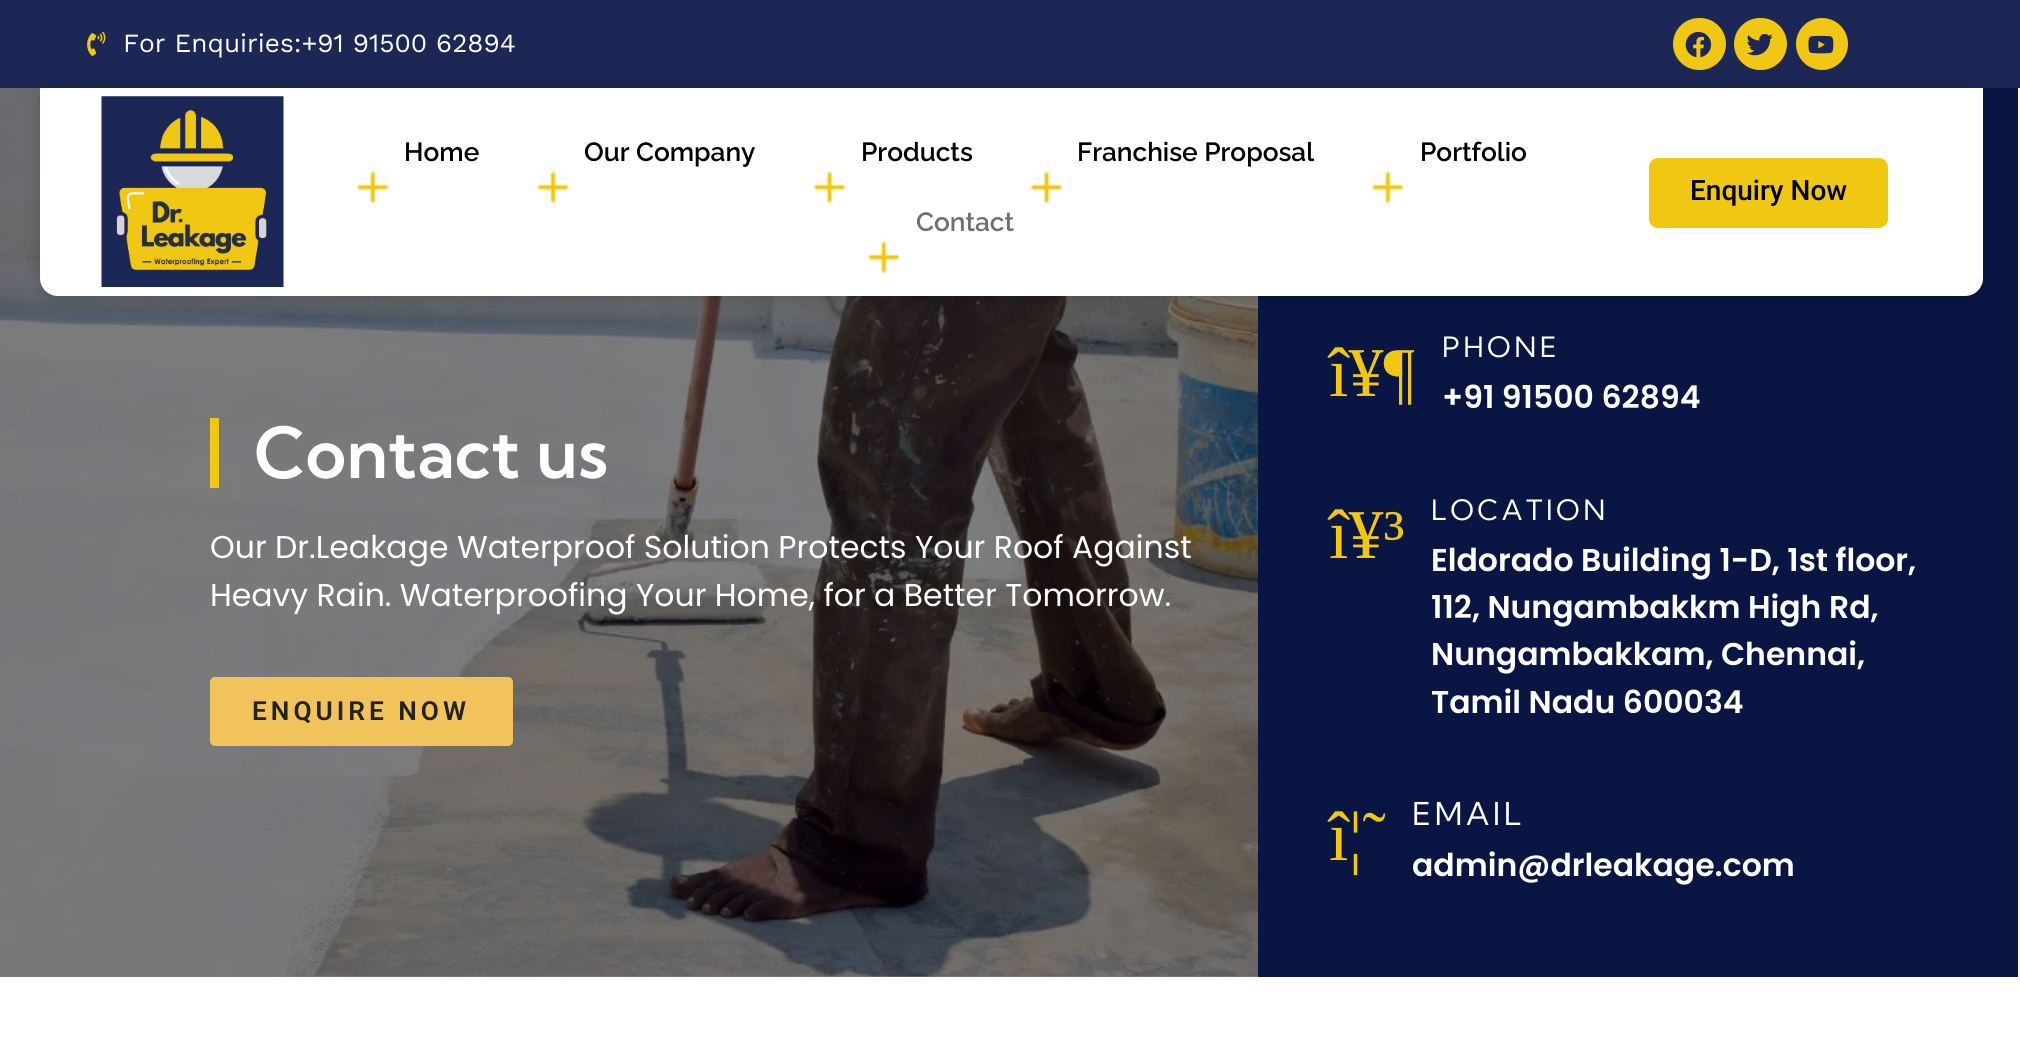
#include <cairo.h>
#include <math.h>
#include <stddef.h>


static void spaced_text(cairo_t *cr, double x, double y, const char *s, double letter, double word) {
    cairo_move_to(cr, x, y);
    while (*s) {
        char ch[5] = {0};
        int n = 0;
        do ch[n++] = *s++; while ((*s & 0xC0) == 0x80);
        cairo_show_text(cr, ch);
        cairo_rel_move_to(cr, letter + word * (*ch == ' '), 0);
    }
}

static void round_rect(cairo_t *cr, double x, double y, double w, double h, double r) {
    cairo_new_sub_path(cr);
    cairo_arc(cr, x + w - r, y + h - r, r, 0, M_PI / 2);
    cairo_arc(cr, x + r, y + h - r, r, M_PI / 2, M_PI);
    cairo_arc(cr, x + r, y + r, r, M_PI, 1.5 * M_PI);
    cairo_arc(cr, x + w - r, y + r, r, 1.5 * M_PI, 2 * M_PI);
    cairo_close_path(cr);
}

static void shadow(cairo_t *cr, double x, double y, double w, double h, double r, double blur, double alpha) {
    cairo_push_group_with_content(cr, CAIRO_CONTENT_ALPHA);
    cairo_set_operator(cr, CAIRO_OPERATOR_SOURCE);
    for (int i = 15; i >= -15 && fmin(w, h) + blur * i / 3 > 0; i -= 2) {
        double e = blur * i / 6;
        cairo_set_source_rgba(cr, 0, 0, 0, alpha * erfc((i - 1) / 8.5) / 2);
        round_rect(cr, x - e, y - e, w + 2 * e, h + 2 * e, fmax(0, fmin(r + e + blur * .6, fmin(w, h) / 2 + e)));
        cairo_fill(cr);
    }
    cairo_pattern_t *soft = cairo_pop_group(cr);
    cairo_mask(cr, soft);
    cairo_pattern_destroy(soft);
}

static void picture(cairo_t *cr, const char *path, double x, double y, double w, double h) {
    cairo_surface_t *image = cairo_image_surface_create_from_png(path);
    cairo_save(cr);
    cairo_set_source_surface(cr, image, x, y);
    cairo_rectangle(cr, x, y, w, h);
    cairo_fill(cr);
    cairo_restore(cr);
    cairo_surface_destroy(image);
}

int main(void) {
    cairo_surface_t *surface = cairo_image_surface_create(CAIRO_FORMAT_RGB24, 2020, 1042);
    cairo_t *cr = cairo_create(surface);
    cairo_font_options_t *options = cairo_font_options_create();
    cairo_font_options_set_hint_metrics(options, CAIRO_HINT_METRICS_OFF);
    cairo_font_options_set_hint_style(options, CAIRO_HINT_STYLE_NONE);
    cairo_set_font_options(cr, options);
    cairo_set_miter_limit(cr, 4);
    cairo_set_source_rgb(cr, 1, 1, 1);
    cairo_paint(cr);
    cairo_set_source_rgb(cr, 0.502, 0.502, 0.502);
    cairo_rectangle(cr, 0, 976, 1258, 1);
    cairo_fill(cr);
    cairo_set_source_rgb(cr, 0.11, 0.153, 0.333);
    cairo_rectangle(cr, 0, 0, 2020, 88);
    cairo_fill(cr);
    picture(cr, "img1.png", 87, 32, 19, 24);
    cairo_select_font_face(cr, "Work Sans", CAIRO_FONT_SLANT_NORMAL, CAIRO_FONT_WEIGHT_NORMAL);
    cairo_set_font_size(cr, 26.25);
    cairo_set_source_rgb(cr, 1, 1, 1);
    cairo_move_to(cr, 123, 52);
    cairo_show_text(cr, "For Enquiries:+91 91500 62894");
    cairo_set_source_rgb(cr, 0.941, 0.78, 0.075);
    round_rect(cr, 1673, 18, 53, 52, 26);
    cairo_fill(cr);
    picture(cr, "img2.png", 1685, 32, 27, 26);
    round_rect(cr, 1734, 18, 53, 52, 26);
    cairo_fill(cr);
    picture(cr, "img3.png", 1747, 34, 26, 22);
    cairo_arc(cr, 1822, 44, 26, 0, 2 * M_PI);
    cairo_fill(cr);
    picture(cr, "img4.png", 1808, 35, 26, 19);
    picture(cr, "img11.png", 0, 88, 1258, 889);
    cairo_set_source_rgb(cr, 0.039, 0.086, 0.267);
    cairo_rectangle(cr, 1258, 88, 760, 889);
    cairo_fill(cr);
    cairo_set_source_rgb(cr, 0, 0, 0);
    shadow(cr, 40, 88, 1943, 208, 18, 9, 0.21);
    cairo_set_source_rgb(cr, 1, 1, 1);
    cairo_new_path(cr);
    cairo_move_to(cr, 40, 88);
    cairo_line_to(cr, 1983, 88);
    cairo_line_to(cr, 1983, 278);
    cairo_curve_to(cr, 1983, 288, 1975, 296, 1965, 296);
    cairo_line_to(cr, 58, 296);
    cairo_curve_to(cr, 48, 296, 40, 288, 40, 278);
    cairo_close_path(cr);
    cairo_fill(cr);
    picture(cr, "img5.png", 101, 96, 183, 191);
    cairo_select_font_face(cr, "Raleway SemiBold", CAIRO_FONT_SLANT_NORMAL, CAIRO_FONT_WEIGHT_NORMAL);
    cairo_set_source_rgb(cr, 0, 0, 0);
    cairo_move_to(cr, 404, 161);
    cairo_show_text(cr, "Home");
    picture(cr, "img6.png", 356, 171, 33, 33);
    cairo_move_to(cr, 584, 161);
    cairo_show_text(cr, "Our Company");
    picture(cr, "img7.png", 536, 171, 34, 33);
    cairo_move_to(cr, 861, 161);
    cairo_show_text(cr, "Products");
    picture(cr, "img8.png", 813, 171, 33, 33);
    cairo_move_to(cr, 1077, 161);
    cairo_show_text(cr, "Franchise Proposal");
    picture(cr, "img9.png", 1030, 171, 33, 33);
    cairo_move_to(cr, 1420, 161);
    cairo_show_text(cr, "Portfolio");
    picture(cr, "img6.png", 1371, 171, 33, 33);
    cairo_set_source_rgb(cr, 0.439, 0.439, 0.439);
    cairo_move_to(cr, 916, 231);
    cairo_show_text(cr, "Contact");
    picture(cr, "img10.png", 867, 241, 33, 33);
    cairo_set_source_rgb(cr, 0.941, 0.78, 0.075);
    round_rect(cr, 1649, 158, 239, 70, 9);
    cairo_fill(cr);
    cairo_select_font_face(cr, "Roboto Medium", CAIRO_FONT_SLANT_NORMAL, CAIRO_FONT_WEIGHT_NORMAL);
    cairo_set_font_size(cr, 28);
    cairo_set_source_rgb(cr, 0, 0, 0);
    cairo_move_to(cr, 1690, 200);
    cairo_show_text(cr, "Enquiry Now");
    cairo_set_source_rgb(cr, 0.941, 0.78, 0.075);
    cairo_rectangle(cr, 210, 418, 9, 70);
    cairo_fill(cr);
    cairo_select_font_face(cr, "Kumbh Sans SemiBold", CAIRO_FONT_SLANT_NORMAL, CAIRO_FONT_WEIGHT_NORMAL);
    cairo_set_font_size(cr, 70);
    cairo_set_source_rgb(cr, 1, 1, 1);
    cairo_move_to(cr, 254, 478);
    cairo_show_text(cr, "Contact us");
    cairo_select_font_face(cr, "Poppins", CAIRO_FONT_SLANT_NORMAL, CAIRO_FONT_WEIGHT_NORMAL);
    cairo_set_font_size(cr, 31.5);
    cairo_move_to(cr, 210, 558);
    cairo_show_text(cr, "Our Dr.Leakage Waterproof Solution Protects Your Roof Against");
    cairo_move_to(cr, 210, 606);
    cairo_show_text(cr, "Heavy Rain. Waterproofing Your Home, for a Better Tomorrow.");
    cairo_set_source_rgb(cr, 0.945, 0.765, 0.353);
    round_rect(cr, 210, 677, 303, 69, 5);
    cairo_fill(cr);
    cairo_select_font_face(cr, "Roboto SemiBold", CAIRO_FONT_SLANT_NORMAL, CAIRO_FONT_WEIGHT_NORMAL);
    cairo_set_font_size(cr, 26.25);
    cairo_set_source_rgb(cr, 0.133, 0.133, 0.133);
    spaced_text(cr, 252, 720, "ENQUIRE NOW", 4, 0);
    cairo_select_font_face(cr, "Liberation Serif", CAIRO_FONT_SLANT_NORMAL, CAIRO_FONT_WEIGHT_NORMAL);
    cairo_set_font_size(cr, 70);
    cairo_set_source_rgb(cr, 0.941, 0.78, 0.075);
    cairo_move_to(cr, 1329, 396);
    cairo_show_text(cr, "î¥¶");
    cairo_select_font_face(cr, "Kumbh Sans", CAIRO_FONT_SLANT_NORMAL, CAIRO_FONT_WEIGHT_NORMAL);
    cairo_set_font_size(cr, 28);
    cairo_set_source_rgb(cr, 1, 1, 1);
    spaced_text(cr, 1442, 357, "PHONE", 3.5, 0);
    cairo_select_font_face(cr, "Poppins SemiBold", CAIRO_FONT_SLANT_NORMAL, CAIRO_FONT_WEIGHT_NORMAL);
    cairo_set_font_size(cr, 31.5);
    cairo_move_to(cr, 1442, 408);
    cairo_show_text(cr, "+91 91500 62894");
    cairo_select_font_face(cr, "Liberation Serif", CAIRO_FONT_SLANT_NORMAL, CAIRO_FONT_WEIGHT_NORMAL);
    cairo_set_font_size(cr, 70);
    cairo_set_source_rgb(cr, 0.941, 0.78, 0.075);
    cairo_move_to(cr, 1329, 558);
    cairo_show_text(cr, "î¥³");
    cairo_select_font_face(cr, "Kumbh Sans", CAIRO_FONT_SLANT_NORMAL, CAIRO_FONT_WEIGHT_NORMAL);
    cairo_set_font_size(cr, 28);
    cairo_set_source_rgb(cr, 1, 1, 1);
    spaced_text(cr, 1431, 520, "LOCATION", 3.5, 0);
    cairo_select_font_face(cr, "Poppins SemiBold", CAIRO_FONT_SLANT_NORMAL, CAIRO_FONT_WEIGHT_NORMAL);
    cairo_set_font_size(cr, 31.5);
    cairo_move_to(cr, 1431, 571);
    cairo_show_text(cr, "Eldorado Building 1-D, 1st floor,");
    cairo_move_to(cr, 1431, 618);
    cairo_show_text(cr, "112, Nungambakkm High Rd,");
    cairo_move_to(cr, 1431, 665);
    cairo_show_text(cr, "Nungambakkam, Chennai,");
    cairo_move_to(cr, 1431, 713);
    cairo_show_text(cr, "Tamil Nadu 600034");
    cairo_select_font_face(cr, "Liberation Serif", CAIRO_FONT_SLANT_NORMAL, CAIRO_FONT_WEIGHT_NORMAL);
    cairo_set_font_size(cr, 70);
    cairo_set_source_rgb(cr, 0.941, 0.78, 0.075);
    cairo_move_to(cr, 1329, 860);
    cairo_show_text(cr, "î¦˜");
    cairo_select_font_face(cr, "Kumbh Sans", CAIRO_FONT_SLANT_NORMAL, CAIRO_FONT_WEIGHT_NORMAL);
    cairo_set_font_size(cr, 31.5);
    cairo_set_source_rgb(cr, 1, 1, 1);
    spaced_text(cr, 1412, 825, "EMAIL", 3.5, 0);
    cairo_select_font_face(cr, "Poppins SemiBold", CAIRO_FONT_SLANT_NORMAL, CAIRO_FONT_WEIGHT_NORMAL);
    cairo_move_to(cr, 1412, 876);
    cairo_show_text(cr, "admin@drleakage.com");
    cairo_surface_write_to_png(surface, "page.png");
    cairo_font_options_destroy(options);
    cairo_destroy(cr);
    cairo_surface_destroy(surface);
    return 0;
}
